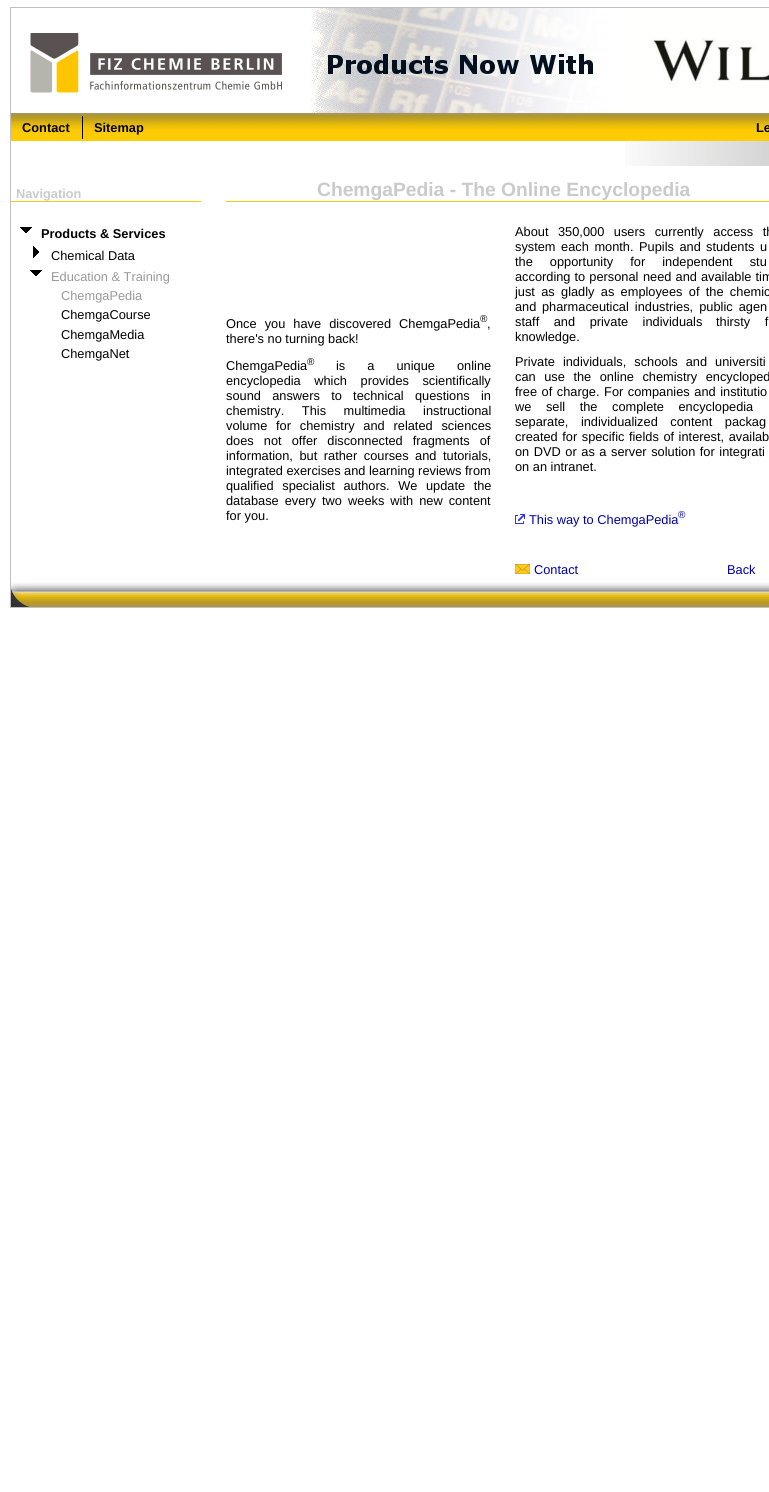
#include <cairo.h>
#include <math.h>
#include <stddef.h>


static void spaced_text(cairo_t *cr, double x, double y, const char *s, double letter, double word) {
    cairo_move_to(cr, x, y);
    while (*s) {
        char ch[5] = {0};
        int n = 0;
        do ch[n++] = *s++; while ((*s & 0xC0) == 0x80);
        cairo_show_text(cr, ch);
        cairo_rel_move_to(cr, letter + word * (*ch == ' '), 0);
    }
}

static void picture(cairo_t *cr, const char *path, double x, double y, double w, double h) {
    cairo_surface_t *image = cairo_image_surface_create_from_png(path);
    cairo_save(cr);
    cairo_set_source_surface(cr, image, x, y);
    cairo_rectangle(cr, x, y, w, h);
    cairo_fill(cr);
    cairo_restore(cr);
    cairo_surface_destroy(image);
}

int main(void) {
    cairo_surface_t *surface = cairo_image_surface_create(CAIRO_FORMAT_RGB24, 769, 1492);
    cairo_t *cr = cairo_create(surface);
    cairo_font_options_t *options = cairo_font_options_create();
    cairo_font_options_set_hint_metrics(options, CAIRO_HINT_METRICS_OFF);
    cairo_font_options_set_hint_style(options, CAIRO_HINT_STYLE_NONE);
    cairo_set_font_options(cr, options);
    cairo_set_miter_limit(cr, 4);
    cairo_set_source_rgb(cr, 1, 1, 1);
    cairo_paint(cr);
    cairo_rectangle(cr, 10.5, 7.5, 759, 600);
    cairo_set_source_rgb(cr, 0.753, 0.753, 0.753);
    cairo_set_line_width(cr, 1);
    cairo_stroke(cr);
    picture(cr, "img1.png", 30, 33, 252, 60);
    picture(cr, "img2.png", 310, 8, 459, 105);
    picture(cr, "img3.png", 11, 113, 758, 28);
    cairo_set_source_rgb(cr, 0, 0, 0);
    cairo_rectangle(cr, 82, 116, 1, 23);
    cairo_fill(cr);
    cairo_select_font_face(cr, "Liberation Sans", CAIRO_FONT_SLANT_NORMAL, CAIRO_FONT_WEIGHT_BOLD);
    cairo_set_font_size(cr, 12.8);
    cairo_move_to(cr, 22, 132);
    cairo_show_text(cr, "Contact");
    cairo_move_to(cr, 94, 132);
    cairo_show_text(cr, "Sitemap");
    cairo_move_to(cr, 756, 132);
    cairo_show_text(cr, "Le");
    picture(cr, "img4.png", 625, 141, 144, 25);
    cairo_set_source_rgb(cr, 1, 0.78, 0.098);
    cairo_rectangle(cr, 11, 201, 190, 1);
    cairo_fill(cr);
    cairo_set_source_rgb(cr, 0.792, 0.792, 0.792);
    cairo_move_to(cr, 16, 198);
    cairo_show_text(cr, "Navigation");
    picture(cr, "img5.png", 20, 227, 12, 6);
    cairo_set_source_rgb(cr, 0, 0, 0);
    cairo_move_to(cr, 41, 238);
    cairo_show_text(cr, "Products & Services");
    picture(cr, "img6.png", 33, 246, 6, 12);
    cairo_select_font_face(cr, "Liberation Sans", CAIRO_FONT_SLANT_NORMAL, CAIRO_FONT_WEIGHT_NORMAL);
    cairo_move_to(cr, 51, 260);
    cairo_show_text(cr, "Chemical Data");
    picture(cr, "img5.png", 30, 270, 12, 6);
    cairo_set_source_rgb(cr, 0.6, 0.6, 0.6);
    cairo_move_to(cr, 51, 281);
    cairo_show_text(cr, "Education & Training");
    cairo_move_to(cr, 61, 300);
    cairo_show_text(cr, "ChemgaPedia");
    cairo_set_source_rgb(cr, 0, 0, 0);
    cairo_move_to(cr, 61, 319);
    cairo_show_text(cr, "ChemgaCourse");
    cairo_move_to(cr, 61, 339);
    cairo_show_text(cr, "ChemgaMedia");
    cairo_move_to(cr, 61, 358);
    cairo_show_text(cr, "ChemgaNet");
    cairo_set_source_rgb(cr, 1, 0.78, 0.098);
    cairo_rectangle(cr, 226, 201, 543, 1);
    cairo_fill(cr);
    cairo_select_font_face(cr, "Liberation Sans", CAIRO_FONT_SLANT_NORMAL, CAIRO_FONT_WEIGHT_BOLD);
    cairo_set_font_size(cr, 19.25);
    cairo_set_source_rgb(cr, 0.792, 0.792, 0.792);
    cairo_move_to(cr, 317, 196);
    cairo_show_text(cr, "ChemgaPedia - The Online Encyclopedia");
    cairo_select_font_face(cr, "Liberation Sans", CAIRO_FONT_SLANT_NORMAL, CAIRO_FONT_WEIGHT_NORMAL);
    cairo_set_font_size(cr, 12.8);
    cairo_set_source_rgb(cr, 0, 0, 0);
    spaced_text(cr, 226, 328, "Once you have discovered ChemgaPedia", 0, 4.5);
    cairo_set_font_size(cr, 10);
    cairo_move_to(cr, 480, 322);
    cairo_show_text(cr, "®");
    cairo_set_font_size(cr, 12.8);
    cairo_move_to(cr, 487, 328);
    cairo_show_text(cr, ",");
    cairo_move_to(cr, 226, 343);
    cairo_show_text(cr, "there's no turning back!");
    cairo_move_to(cr, 226, 370);
    cairo_show_text(cr, "ChemgaPedia");
    cairo_set_font_size(cr, 10);
    cairo_move_to(cr, 307, 365);
    cairo_show_text(cr, "®");
    cairo_set_font_size(cr, 12.8);
    spaced_text(cr, 336, 370, "is a unique online", 0, 18.5);
    spaced_text(cr, 226, 385, "encyclopedia which provides scientifically", 0, 10);
    spaced_text(cr, 226, 400, "sound answers to technical questions in", 0, 7.75);
    spaced_text(cr, 226, 415, "chemistry. This multimedia instructional", 0, 14);
    spaced_text(cr, 226, 430, "volume for chemistry and related sciences", 0, 5.25);
    spaced_text(cr, 226, 445, "does not offer disconnected fragments of", 0, 6.5);
    spaced_text(cr, 226, 460, "information, but rather courses and tutorials,", 0, 3);
    cairo_move_to(cr, 226, 475);
    cairo_show_text(cr, "integrated exercises and learning reviews from");
    spaced_text(cr, 226, 490, "qualified specialist authors. We update the", 0, 5);
    spaced_text(cr, 226, 505, "database every two weeks with new content", 0, 2.5);
    cairo_move_to(cr, 226, 520);
    cairo_show_text(cr, "for you.");
    spaced_text(cr, 515, 236, "About 350,000 users currently access th", 0, 6);
    spaced_text(cr, 515, 251, "system each month. Pupils and", 0, 2);
    spaced_text(cr, 706, 251, "students u", 0, 2);
    spaced_text(cr, 515, 266, "the opportunity for independent stu", 0, 13.5);
    spaced_text(cr, 515, 281, "according to personal", 0, 0.5);
    spaced_text(cr, 643, 281, "need and available tim", 0, 0.5);
    spaced_text(cr, 515, 296, "just as gladly as employees of the chemic", 0, 2.75);
    cairo_move_to(cr, 515, 311);
    cairo_show_text(cr, "and");
    spaced_text(cr, 542, 311, "pharmaceutical industries, public agen", 0, 2.5);
    spaced_text(cr, 515, 326, "staff and private individuals", 0, 11);
    spaced_text(cr, 716, 326, "thirsty f", 0, 11);
    cairo_move_to(cr, 515, 341);
    cairo_show_text(cr, "knowledge.");
    spaced_text(cr, 515, 366, "Private individuals, schools and universiti", 0, 4.5);
    spaced_text(cr, 515, 381, "can use the online chemistry encycloped", 0, 5);
    spaced_text(cr, 515, 396, "free of charge. For companies and institutio", 0, 1);
    spaced_text(cr, 515, 411, "we sell the complete encyclopedia", 0, 11);
    spaced_text(cr, 515, 426, "separate, individualized content packag", 0, 9);
    spaced_text(cr, 515, 441, "created for specific fields of interest, availab", 0, 1);
    spaced_text(cr, 515, 456, "on DVD or as a server solution for integrati", 0, 1);
    cairo_move_to(cr, 515, 471);
    cairo_show_text(cr, "on an intranet.");
    picture(cr, "img7.png", 515, 514, 10, 10);
    cairo_set_source_rgb(cr, 0, 0, 0.667);
    cairo_move_to(cr, 529, 524);
    cairo_show_text(cr, "This way to ChemgaPedia");
    cairo_set_font_size(cr, 10);
    cairo_move_to(cr, 678, 518);
    cairo_show_text(cr, "®");
    picture(cr, "img8.png", 515, 564, 15, 10);
    cairo_set_font_size(cr, 12.8);
    cairo_move_to(cr, 534, 574);
    cairo_show_text(cr, "Contact");
    cairo_move_to(cr, 727, 574);
    cairo_show_text(cr, "Back");
    picture(cr, "img9.png", 11, 582, 758, 25);
    picture(cr, "img10.png", 11, 583, 19, 24);
    cairo_surface_write_to_png(surface, "page.png");
    cairo_font_options_destroy(options);
    cairo_destroy(cr);
    cairo_surface_destroy(surface);
    return 0;
}
